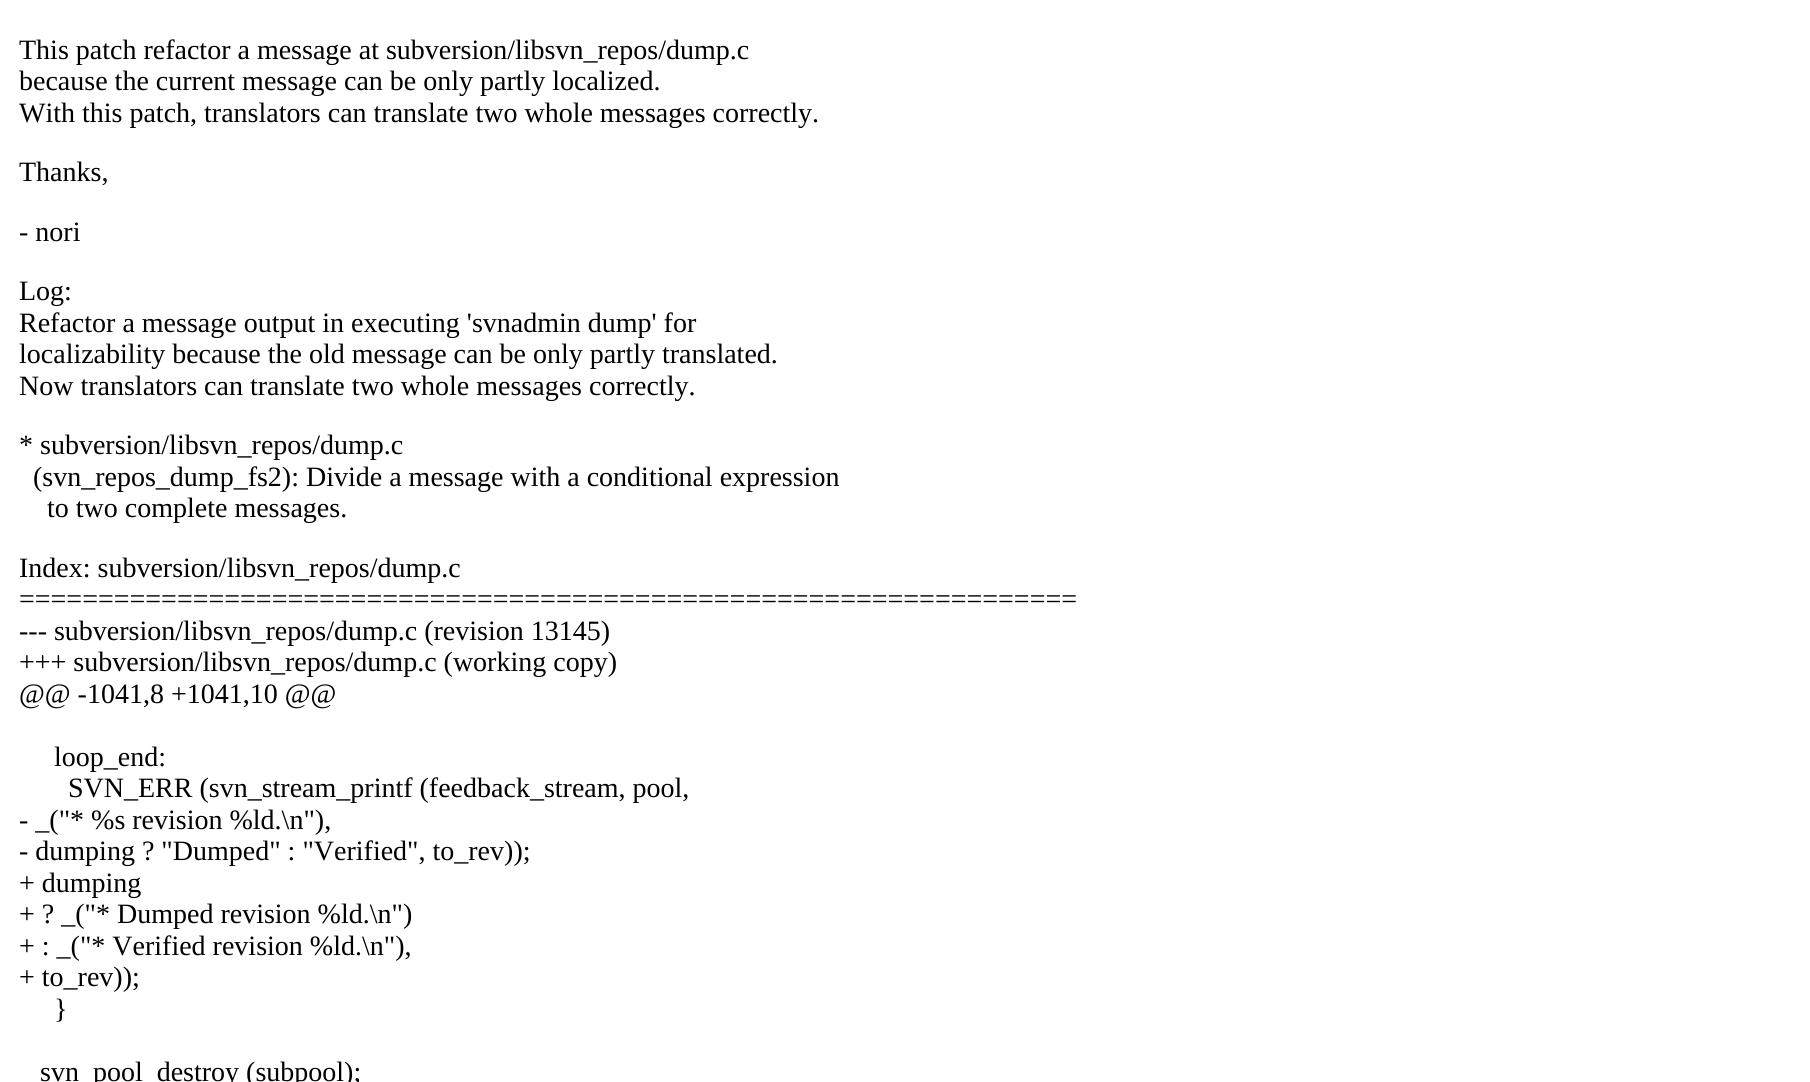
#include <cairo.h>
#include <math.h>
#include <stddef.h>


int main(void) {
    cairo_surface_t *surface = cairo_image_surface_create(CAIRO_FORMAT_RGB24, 1810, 1082);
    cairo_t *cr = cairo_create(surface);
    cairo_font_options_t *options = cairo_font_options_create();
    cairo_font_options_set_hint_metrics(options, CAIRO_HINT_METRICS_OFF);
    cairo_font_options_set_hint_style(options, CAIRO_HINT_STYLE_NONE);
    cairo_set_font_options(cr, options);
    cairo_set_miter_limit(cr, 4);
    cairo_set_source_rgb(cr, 1, 1, 1);
    cairo_paint(cr);
    cairo_select_font_face(cr, "Liberation Serif", CAIRO_FONT_SLANT_NORMAL, CAIRO_FONT_WEIGHT_NORMAL);
    cairo_set_font_size(cr, 28);
    cairo_set_source_rgb(cr, 0, 0, 0);
    cairo_move_to(cr, 19, 59);
    cairo_show_text(cr, "This patch refactor a message at subversion/libsvn_repos/dump.c");
    cairo_move_to(cr, 19, 90);
    cairo_show_text(cr, "because the current message can be only partly localized.");
    cairo_move_to(cr, 19, 122);
    cairo_show_text(cr, "With this patch, translators can translate two whole messages correctly.");
    cairo_move_to(cr, 19, 181);
    cairo_show_text(cr, "Thanks,");
    cairo_move_to(cr, 19, 241);
    cairo_show_text(cr, "- nori");
    cairo_move_to(cr, 19, 300);
    cairo_show_text(cr, "Log:");
    cairo_move_to(cr, 19, 332);
    cairo_show_text(cr, "Refactor a message output in executing 'svnadmin dump' for");
    cairo_move_to(cr, 19, 363);
    cairo_show_text(cr, "localizability because the old message can be only partly translated.");
    cairo_move_to(cr, 19, 395);
    cairo_show_text(cr, "Now translators can translate two whole messages correctly.");
    cairo_move_to(cr, 19, 454);
    cairo_show_text(cr, "* subversion/libsvn_repos/dump.c");
    cairo_move_to(cr, 33, 486);
    cairo_show_text(cr, "(svn_repos_dump_fs2): Divide a message with a conditional expression");
    cairo_move_to(cr, 47, 517);
    cairo_show_text(cr, "to two complete messages.");
    cairo_move_to(cr, 19, 577);
    cairo_show_text(cr, "Index: subversion/libsvn_repos/dump.c");
    cairo_move_to(cr, 19, 608);
    cairo_show_text(cr, "===================================================================");
    cairo_move_to(cr, 19, 640);
    cairo_show_text(cr, "--- subversion/libsvn_repos/dump.c (revision 13145)");
    cairo_move_to(cr, 19, 671);
    cairo_show_text(cr, "+++ subversion/libsvn_repos/dump.c (working copy)");
    cairo_move_to(cr, 19, 703);
    cairo_show_text(cr, "@@ -1041,8 +1041,10 @@");
    cairo_move_to(cr, 54, 766);
    cairo_show_text(cr, "loop_end:");
    cairo_move_to(cr, 68, 797);
    cairo_show_text(cr, "SVN_ERR (svn_stream_printf (feedback_stream, pool,");
    cairo_move_to(cr, 19, 829);
    cairo_show_text(cr, "- _(\"* %s revision %ld.\\n\"),");
    cairo_move_to(cr, 19, 860);
    cairo_show_text(cr, "- dumping ? \"Dumped\" : \"Verified\", to_rev));");
    cairo_move_to(cr, 19, 892);
    cairo_show_text(cr, "+ dumping");
    cairo_move_to(cr, 19, 923);
    cairo_show_text(cr, "+ ? _(\"* Dumped revision %ld.\\n\")");
    cairo_move_to(cr, 19, 955);
    cairo_show_text(cr, "+ : _(\"* Verified revision %ld.\\n\"),");
    cairo_move_to(cr, 19, 986);
    cairo_show_text(cr, "+ to_rev));");
    cairo_move_to(cr, 54, 1018);
    cairo_show_text(cr, "}");
    cairo_move_to(cr, 40, 1081);
    cairo_show_text(cr, "svn_pool_destroy (subpool);");
    cairo_surface_write_to_png(surface, "page.png");
    cairo_font_options_destroy(options);
    cairo_destroy(cr);
    cairo_surface_destroy(surface);
    return 0;
}
